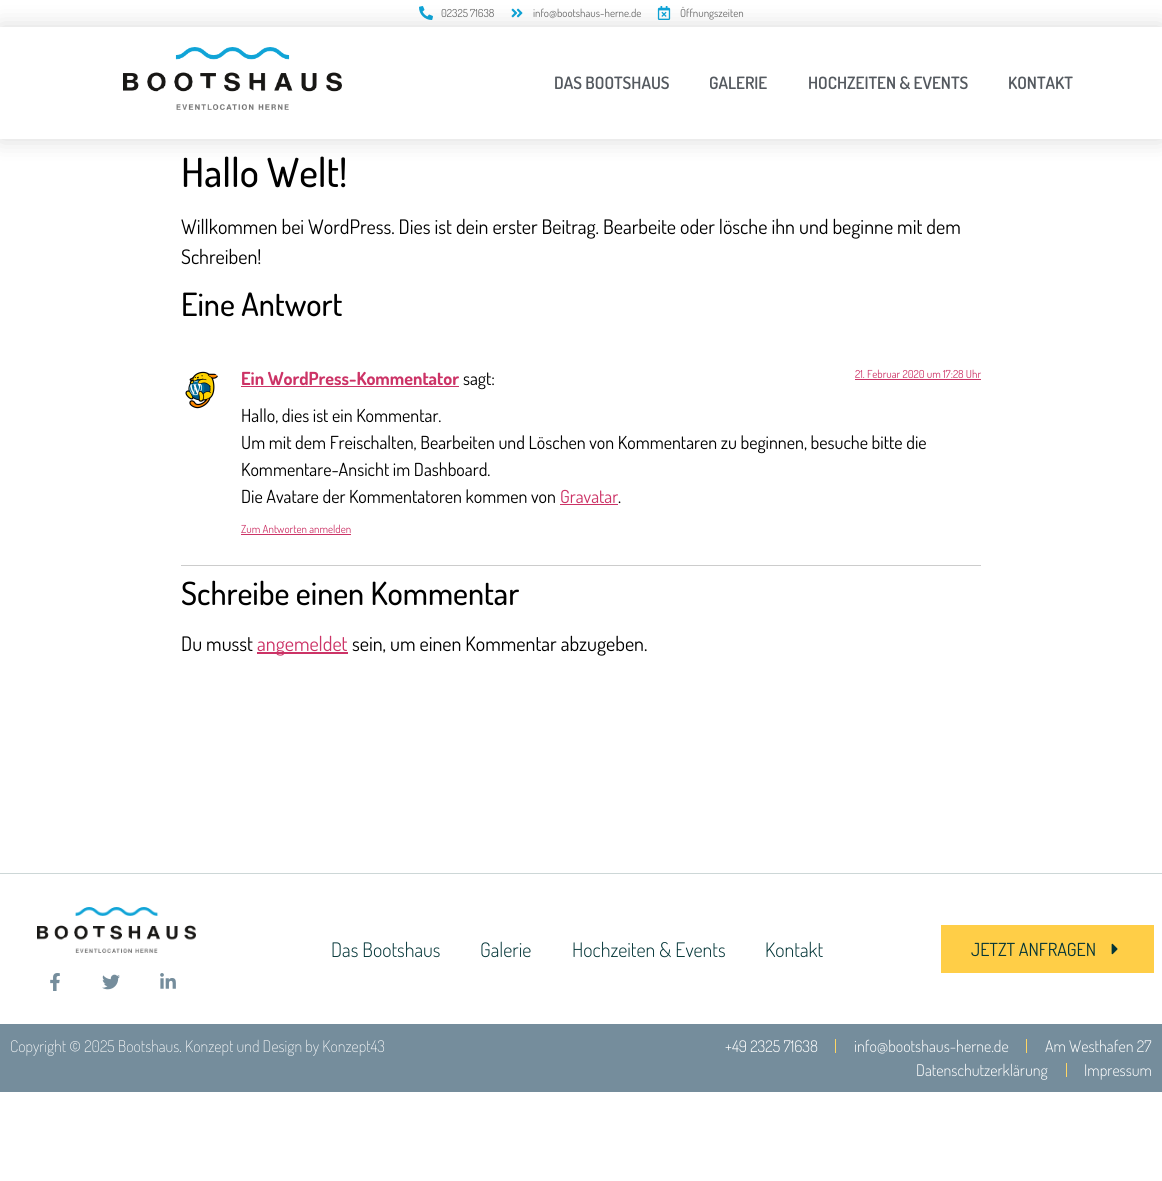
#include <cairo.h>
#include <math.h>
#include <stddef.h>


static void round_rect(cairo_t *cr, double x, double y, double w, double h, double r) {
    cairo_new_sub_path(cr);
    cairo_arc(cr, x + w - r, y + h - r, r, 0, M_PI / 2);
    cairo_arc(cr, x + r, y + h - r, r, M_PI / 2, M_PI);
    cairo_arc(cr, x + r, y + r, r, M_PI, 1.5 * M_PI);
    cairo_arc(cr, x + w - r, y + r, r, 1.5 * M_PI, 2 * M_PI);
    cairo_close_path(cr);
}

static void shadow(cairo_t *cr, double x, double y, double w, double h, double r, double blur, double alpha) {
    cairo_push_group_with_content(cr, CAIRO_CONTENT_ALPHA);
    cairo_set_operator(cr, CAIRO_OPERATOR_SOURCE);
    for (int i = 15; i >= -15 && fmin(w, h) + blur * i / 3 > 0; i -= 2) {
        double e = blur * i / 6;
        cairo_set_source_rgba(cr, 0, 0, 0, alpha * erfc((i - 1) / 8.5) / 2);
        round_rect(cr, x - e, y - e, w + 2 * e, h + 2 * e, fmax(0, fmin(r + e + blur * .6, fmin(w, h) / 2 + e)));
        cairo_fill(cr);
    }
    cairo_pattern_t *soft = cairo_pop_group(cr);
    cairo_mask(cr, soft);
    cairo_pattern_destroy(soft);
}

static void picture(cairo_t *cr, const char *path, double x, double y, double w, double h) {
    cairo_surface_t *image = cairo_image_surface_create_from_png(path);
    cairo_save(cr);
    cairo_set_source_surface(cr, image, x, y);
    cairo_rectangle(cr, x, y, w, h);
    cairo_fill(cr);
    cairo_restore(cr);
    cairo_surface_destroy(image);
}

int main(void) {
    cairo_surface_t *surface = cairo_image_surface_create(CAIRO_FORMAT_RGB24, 1162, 1181);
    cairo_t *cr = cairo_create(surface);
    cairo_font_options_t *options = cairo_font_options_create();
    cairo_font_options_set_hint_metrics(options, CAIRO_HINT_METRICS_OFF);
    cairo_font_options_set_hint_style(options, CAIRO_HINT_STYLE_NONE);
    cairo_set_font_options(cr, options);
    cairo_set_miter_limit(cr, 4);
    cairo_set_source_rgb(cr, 1, 1, 1);
    cairo_paint(cr);
    picture(cr, "img1.png", 419, 6, 14, 14);
    cairo_select_font_face(cr, "Dosis", CAIRO_FONT_SLANT_NORMAL, CAIRO_FONT_WEIGHT_NORMAL);
    cairo_set_font_size(cr, 11);
    cairo_set_source_rgb(cr, 0.424, 0.424, 0.424);
    cairo_move_to(cr, 441, 17);
    cairo_show_text(cr, "02325 71638");
    picture(cr, "img2.png", 511, 8, 12, 10);
    cairo_move_to(cr, 533, 17);
    cairo_show_text(cr, "info@bootshaus-herne.de");
    picture(cr, "img3.png", 657, 6, 14, 14);
    cairo_move_to(cr, 680, 17);
    cairo_show_text(cr, "Öffnungszeiten");
    cairo_save(cr);
    cairo_set_fill_rule(cr, CAIRO_FILL_RULE_EVEN_ODD);
    cairo_new_path(cr);
    cairo_move_to(cr, 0, 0);
    cairo_line_to(cr, 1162, 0);
    cairo_line_to(cr, 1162, 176);
    cairo_line_to(cr, 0, 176);
    cairo_close_path(cr);
    cairo_move_to(cr, 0, 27);
    cairo_line_to(cr, 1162, 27);
    cairo_line_to(cr, 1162, 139);
    cairo_line_to(cr, 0, 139);
    cairo_close_path(cr);
    cairo_clip(cr);
    cairo_set_source_rgb(cr, 0, 0, 0);
    shadow(cr, 0, 27, 1162, 112, 0, 12, 0.15);
    cairo_restore(cr);
    picture(cr, "img4.png", 123, 47, 219, 63);
    cairo_select_font_face(cr, "Dosis SemiBold", CAIRO_FONT_SLANT_NORMAL, CAIRO_FONT_WEIGHT_NORMAL);
    cairo_set_font_size(cr, 17);
    cairo_set_source_rgb(cr, 0.329, 0.349, 0.373);
    cairo_move_to(cr, 554, 89);
    cairo_show_text(cr, "DAS BOOTSHAUS");
    cairo_move_to(cr, 709, 89);
    cairo_show_text(cr, "GALERIE");
    cairo_move_to(cr, 808, 89);
    cairo_show_text(cr, "HOCHZEITEN & EVENTS");
    cairo_move_to(cr, 1008, 89);
    cairo_show_text(cr, "KONTAKT");
    cairo_select_font_face(cr, "Dosis Medium", CAIRO_FONT_SLANT_NORMAL, CAIRO_FONT_WEIGHT_NORMAL);
    cairo_set_font_size(cr, 40);
    cairo_set_source_rgb(cr, 0, 0, 0);
    cairo_move_to(cr, 181, 187);
    cairo_show_text(cr, "Hallo Welt!");
    cairo_select_font_face(cr, "Dosis", CAIRO_FONT_SLANT_NORMAL, CAIRO_FONT_WEIGHT_NORMAL);
    cairo_set_font_size(cr, 20);
    cairo_move_to(cr, 181, 234);
    cairo_show_text(cr, "Willkommen bei WordPress. Dies ist dein erster Beitrag. Bearbeite oder lösche ihn und beginne mit dem");
    cairo_move_to(cr, 181, 264);
    cairo_show_text(cr, "Schreiben!");
    cairo_select_font_face(cr, "Dosis Medium", CAIRO_FONT_SLANT_NORMAL, CAIRO_FONT_WEIGHT_NORMAL);
    cairo_set_font_size(cr, 32);
    cairo_move_to(cr, 181, 316);
    cairo_show_text(cr, "Eine Antwort");
    cairo_set_source_rgb(cr, 0.8, 0.8, 0.8);
    cairo_rectangle(cr, 181, 565, 800, 1);
    cairo_fill(cr);
    picture(cr, "img5.png", 185, 371, 33, 38);
    cairo_select_font_face(cr, "Dosis", CAIRO_FONT_SLANT_NORMAL, CAIRO_FONT_WEIGHT_BOLD);
    cairo_set_font_size(cr, 18);
    cairo_set_source_rgb(cr, 0.8, 0.2, 0.4);
    cairo_move_to(cr, 241, 385);
    cairo_show_text(cr, "Ein WordPress-Kommentator");
    cairo_rectangle(cr, 241, 386, 218, 1);
    cairo_fill(cr);
    cairo_select_font_face(cr, "Dosis", CAIRO_FONT_SLANT_NORMAL, CAIRO_FONT_WEIGHT_NORMAL);
    cairo_set_source_rgb(cr, 0, 0, 0);
    cairo_move_to(cr, 463, 385);
    cairo_show_text(cr, "sagt:");
    cairo_set_font_size(cr, 11);
    cairo_set_source_rgb(cr, 0.8, 0.2, 0.4);
    cairo_move_to(cr, 855, 378);
    cairo_show_text(cr, "21. Februar 2020 um 17:28 Uhr");
    cairo_rectangle(cr, 855, 379, 126, 1);
    cairo_fill(cr);
    cairo_set_font_size(cr, 18);
    cairo_set_source_rgb(cr, 0, 0, 0);
    cairo_move_to(cr, 241, 422);
    cairo_show_text(cr, "Hallo, dies ist ein Kommentar.");
    cairo_move_to(cr, 241, 449);
    cairo_show_text(cr, "Um mit dem Freischalten, Bearbeiten und Löschen von Kommentaren zu beginnen, besuche bitte die");
    cairo_move_to(cr, 241, 476);
    cairo_show_text(cr, "Kommentare-Ansicht im Dashboard.");
    cairo_move_to(cr, 241, 503);
    cairo_show_text(cr, "Die Avatare der Kommentatoren kommen von");
    cairo_set_source_rgb(cr, 0.8, 0.2, 0.4);
    cairo_move_to(cr, 560, 503);
    cairo_show_text(cr, "Gravatar");
    cairo_rectangle(cr, 560, 504, 58, 1);
    cairo_fill(cr);
    cairo_set_source_rgb(cr, 0, 0, 0);
    cairo_move_to(cr, 618, 503);
    cairo_show_text(cr, ".");
    cairo_set_font_size(cr, 11);
    cairo_set_source_rgb(cr, 0.8, 0.2, 0.4);
    cairo_move_to(cr, 241, 533);
    cairo_show_text(cr, "Zum Antworten anmelden");
    cairo_rectangle(cr, 241, 534, 110, 1);
    cairo_fill(cr);
    cairo_select_font_face(cr, "Dosis Medium", CAIRO_FONT_SLANT_NORMAL, CAIRO_FONT_WEIGHT_NORMAL);
    cairo_set_font_size(cr, 32);
    cairo_set_source_rgb(cr, 0, 0, 0);
    cairo_move_to(cr, 181, 605);
    cairo_show_text(cr, "Schreibe einen Kommentar");
    cairo_select_font_face(cr, "Dosis", CAIRO_FONT_SLANT_NORMAL, CAIRO_FONT_WEIGHT_NORMAL);
    cairo_set_font_size(cr, 20);
    cairo_move_to(cr, 181, 651);
    cairo_show_text(cr, "Du musst");
    cairo_set_source_rgb(cr, 0.8, 0.2, 0.4);
    cairo_rectangle(cr, 257, 652, 91, 2);
    cairo_fill(cr);
    cairo_move_to(cr, 257, 651);
    cairo_show_text(cr, "angemeldet");
    cairo_set_source_rgb(cr, 0, 0, 0);
    cairo_move_to(cr, 352, 651);
    cairo_show_text(cr, "sein, um einen Kommentar abzugeben.");
    cairo_set_source_rgb(cr, 0.804, 0.843, 0.843);
    cairo_rectangle(cr, 0, 873, 1162, 1);
    cairo_fill(cr);
    picture(cr, "img6.png", 37, 907, 159, 46);
    picture(cr, "img7.png", 50, 973, 10, 18);
    picture(cr, "img8.png", 102, 974, 18, 16);
    picture(cr, "img9.png", 160, 973, 16, 16);
    cairo_select_font_face(cr, "Dosis Light", CAIRO_FONT_SLANT_NORMAL, CAIRO_FONT_WEIGHT_NORMAL);
    cairo_set_source_rgb(cr, 0.012, 0.208, 0.216);
    cairo_move_to(cr, 331, 957);
    cairo_show_text(cr, "Das Bootshaus");
    cairo_move_to(cr, 480, 957);
    cairo_show_text(cr, "Galerie");
    cairo_move_to(cr, 572, 957);
    cairo_show_text(cr, "Hochzeiten & Events");
    cairo_move_to(cr, 765, 957);
    cairo_show_text(cr, "Kontakt");
    cairo_set_source_rgb(cr, 1, 0.808, 0.278);
    cairo_rectangle(cr, 941, 925, 213, 48);
    cairo_fill(cr);
    cairo_select_font_face(cr, "Dosis", CAIRO_FONT_SLANT_NORMAL, CAIRO_FONT_WEIGHT_NORMAL);
    cairo_set_font_size(cr, 18);
    cairo_set_source_rgb(cr, 0.012, 0.208, 0.216);
    cairo_move_to(cr, 971, 956);
    cairo_show_text(cr, "JETZT ANFRAGEN");
    picture(cr, "img10.png", 1111, 943, 7, 12);
    cairo_set_source_rgb(cr, 0.459, 0.553, 0.612);
    cairo_rectangle(cr, 0, 1024, 1162, 68);
    cairo_fill(cr);
    cairo_select_font_face(cr, "Dosis ExtraLight", CAIRO_FONT_SLANT_NORMAL, CAIRO_FONT_WEIGHT_NORMAL);
    cairo_set_font_size(cr, 16);
    cairo_set_source_rgb(cr, 1, 1, 1);
    cairo_move_to(cr, 10, 1052);
    cairo_show_text(cr, "Copyright © 2025 Bootshaus. Konzept und Design by Konzept43");
    cairo_select_font_face(cr, "Dosis Light", CAIRO_FONT_SLANT_NORMAL, CAIRO_FONT_WEIGHT_NORMAL);
    cairo_move_to(cr, 725, 1052);
    cairo_show_text(cr, "+49 2325 71638");
    cairo_set_source_rgb(cr, 1, 0.839, 0.392);
    cairo_rectangle(cr, 835, 1039, 1, 14);
    cairo_fill(cr);
    cairo_set_source_rgb(cr, 1, 1, 1);
    cairo_move_to(cr, 854, 1052);
    cairo_show_text(cr, "info@bootshaus-herne.de");
    cairo_set_source_rgb(cr, 1, 0.839, 0.392);
    cairo_rectangle(cr, 1026, 1039, 1, 14);
    cairo_fill(cr);
    cairo_set_source_rgb(cr, 1, 1, 1);
    cairo_move_to(cr, 1045, 1052);
    cairo_show_text(cr, "Am Westhafen 27");
    cairo_move_to(cr, 916, 1076);
    cairo_show_text(cr, "Datenschutzerklärung");
    cairo_set_source_rgb(cr, 1, 0.839, 0.392);
    cairo_rectangle(cr, 1066, 1063, 1, 14);
    cairo_fill(cr);
    cairo_set_source_rgb(cr, 1, 1, 1);
    cairo_move_to(cr, 1084, 1076);
    cairo_show_text(cr, "Impressum");
    cairo_surface_write_to_png(surface, "page.png");
    cairo_font_options_destroy(options);
    cairo_destroy(cr);
    cairo_surface_destroy(surface);
    return 0;
}
